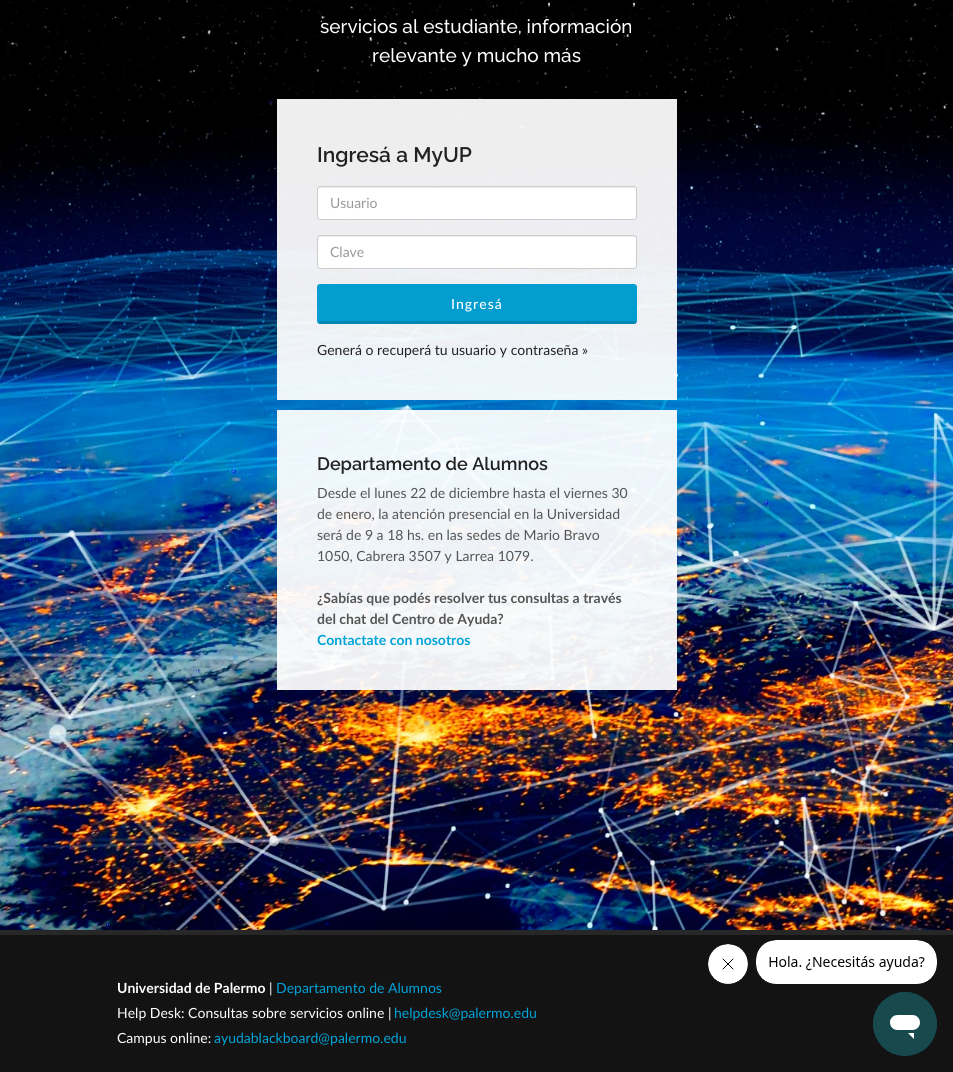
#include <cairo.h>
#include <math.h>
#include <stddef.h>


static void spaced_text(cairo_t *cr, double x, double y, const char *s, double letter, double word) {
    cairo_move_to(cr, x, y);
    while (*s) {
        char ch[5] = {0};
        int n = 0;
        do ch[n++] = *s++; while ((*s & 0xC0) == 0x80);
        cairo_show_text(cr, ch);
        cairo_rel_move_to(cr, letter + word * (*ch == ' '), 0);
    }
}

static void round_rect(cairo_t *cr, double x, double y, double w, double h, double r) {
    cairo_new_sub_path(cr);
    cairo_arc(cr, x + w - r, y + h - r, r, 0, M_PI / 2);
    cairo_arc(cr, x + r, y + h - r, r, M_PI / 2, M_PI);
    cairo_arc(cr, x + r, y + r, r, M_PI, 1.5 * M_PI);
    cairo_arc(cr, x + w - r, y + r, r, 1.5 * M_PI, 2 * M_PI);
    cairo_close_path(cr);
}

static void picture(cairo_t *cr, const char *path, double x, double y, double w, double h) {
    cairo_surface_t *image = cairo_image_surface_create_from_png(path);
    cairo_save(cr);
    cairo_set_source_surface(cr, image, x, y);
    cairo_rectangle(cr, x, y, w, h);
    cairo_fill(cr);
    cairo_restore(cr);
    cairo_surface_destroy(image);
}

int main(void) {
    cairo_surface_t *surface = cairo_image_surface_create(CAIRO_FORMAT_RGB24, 953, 1072);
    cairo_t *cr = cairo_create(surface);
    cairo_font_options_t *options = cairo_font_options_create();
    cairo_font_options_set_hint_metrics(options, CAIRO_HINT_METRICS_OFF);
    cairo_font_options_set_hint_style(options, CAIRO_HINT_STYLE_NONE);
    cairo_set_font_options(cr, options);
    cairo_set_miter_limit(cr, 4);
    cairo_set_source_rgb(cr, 1, 1, 1);
    cairo_paint(cr);
    picture(cr, "img1.png", 0, 0, 953, 930);
    cairo_select_font_face(cr, "Raleway Medium", CAIRO_FONT_SLANT_NORMAL, CAIRO_FONT_WEIGHT_NORMAL);
    cairo_set_font_size(cr, 19);
    cairo_set_source_rgb(cr, 0.996, 0.996, 0.996);
    cairo_move_to(cr, 547, 5);
    cairo_show_text(cr, ",");
    cairo_move_to(cr, 632, 5);
    cairo_show_text(cr, ",");
    cairo_move_to(cr, 320, 33);
    cairo_show_text(cr, "servicios al estudiante, información");
    cairo_move_to(cr, 372, 62);
    cairo_show_text(cr, "relevante y mucho más");
    cairo_set_source_rgba(cr, 1, 1, 1, 0.93);
    cairo_rectangle(cr, 277, 99, 400, 301);
    cairo_fill(cr);
    cairo_select_font_face(cr, "Raleway SemiBold", CAIRO_FONT_SLANT_NORMAL, CAIRO_FONT_WEIGHT_NORMAL);
    cairo_set_font_size(cr, 21);
    cairo_set_source_rgb(cr, 0.133, 0.133, 0.133);
    cairo_move_to(cr, 317, 162);
    cairo_show_text(cr, "Ingresá a MyUP");
    cairo_set_source_rgb(cr, 1, 1, 1);
    round_rect(cr, 317, 186, 320, 34, 3);
    cairo_fill(cr);
    cairo_set_source_rgb(cr, 0.925, 0.925, 0.925);
    cairo_new_path(cr);
    cairo_move_to(cr, 320, 188);
    cairo_line_to(cr, 634, 188);
    cairo_curve_to(cr, 635, 188, 636, 189, 636, 190);
    cairo_curve_to(cr, 636, 189, 636, 187, 634, 187);
    cairo_line_to(cr, 319, 187);
    cairo_line_to(cr, 318, 188);
    cairo_line_to(cr, 318, 190);
    cairo_curve_to(cr, 318, 189, 319, 188, 320, 188);
    cairo_close_path(cr);
    cairo_fill(cr);
    round_rect(cr, 317.5, 186.5, 319, 33, 2.5);
    cairo_set_source_rgb(cr, 0.8, 0.8, 0.8);
    cairo_set_line_width(cr, 1);
    cairo_stroke(cr);
    cairo_select_font_face(cr, "Lato", CAIRO_FONT_SLANT_NORMAL, CAIRO_FONT_WEIGHT_NORMAL);
    cairo_set_font_size(cr, 14);
    cairo_set_source_rgb(cr, 0.6, 0.6, 0.6);
    cairo_move_to(cr, 330, 208);
    cairo_show_text(cr, "Usuario");
    cairo_set_source_rgb(cr, 1, 1, 1);
    round_rect(cr, 317, 235, 320, 34, 3);
    cairo_fill(cr);
    cairo_set_source_rgb(cr, 0.925, 0.925, 0.925);
    cairo_new_path(cr);
    cairo_move_to(cr, 320, 237);
    cairo_line_to(cr, 634, 237);
    cairo_curve_to(cr, 635, 237, 636, 238, 636, 239);
    cairo_curve_to(cr, 636, 238, 636, 236, 634, 236);
    cairo_line_to(cr, 319, 236);
    cairo_line_to(cr, 318, 237);
    cairo_line_to(cr, 318, 239);
    cairo_curve_to(cr, 318, 238, 319, 237, 320, 237);
    cairo_close_path(cr);
    cairo_fill(cr);
    round_rect(cr, 317.5, 235.5, 319, 33, 2.5);
    cairo_set_source_rgb(cr, 0.8, 0.8, 0.8);
    cairo_stroke(cr);
    cairo_set_source_rgb(cr, 0.6, 0.6, 0.6);
    cairo_move_to(cr, 330, 257);
    cairo_show_text(cr, "Clave");
    cairo_set_source_rgb(cr, 0.012, 0.616, 0.816);
    round_rect(cr, 317, 284, 320, 40, 3);
    cairo_fill(cr);
    cairo_set_source_rgba(cr, 0, 0, 0, 0.15);
    cairo_rectangle(cr, 319, 321, 317, 3);
    cairo_fill(cr);
    cairo_select_font_face(cr, "Lato Medium", CAIRO_FONT_SLANT_NORMAL, CAIRO_FONT_WEIGHT_NORMAL);
    cairo_set_source_rgb(cr, 0.996, 0.996, 0.996);
    spaced_text(cr, 451, 309, "Ingresá", 1, 0);
    cairo_select_font_face(cr, "Lato", CAIRO_FONT_SLANT_NORMAL, CAIRO_FONT_WEIGHT_NORMAL);
    cairo_set_source_rgb(cr, 0.133, 0.133, 0.133);
    cairo_move_to(cr, 317, 355);
    cairo_show_text(cr, "Generá o recuperá tu usuario y contraseña »");
    cairo_set_source_rgba(cr, 1, 1, 1, 0.93);
    cairo_rectangle(cr, 277, 410, 400, 280);
    cairo_fill(cr);
    cairo_select_font_face(cr, "Raleway SemiBold", CAIRO_FONT_SLANT_NORMAL, CAIRO_FONT_WEIGHT_NORMAL);
    cairo_set_font_size(cr, 18);
    cairo_set_source_rgb(cr, 0.133, 0.133, 0.133);
    cairo_move_to(cr, 317, 470);
    cairo_show_text(cr, "Departamento de Alumnos");
    cairo_select_font_face(cr, "Lato", CAIRO_FONT_SLANT_NORMAL, CAIRO_FONT_WEIGHT_NORMAL);
    cairo_set_font_size(cr, 14);
    cairo_set_source_rgb(cr, 0.333, 0.333, 0.333);
    cairo_move_to(cr, 317, 498);
    cairo_show_text(cr, "Desde el lunes 22 de diciembre hasta el viernes 30");
    cairo_move_to(cr, 317, 519);
    cairo_show_text(cr, "de enero, la atención presencial en la Universidad");
    cairo_move_to(cr, 317, 540);
    cairo_show_text(cr, "será de 9 a 18 hs. en las sedes de Mario Bravo");
    cairo_move_to(cr, 317, 561);
    cairo_show_text(cr, "1050, Cabrera 3507 y Larrea 1079.");
    cairo_select_font_face(cr, "Lato", CAIRO_FONT_SLANT_NORMAL, CAIRO_FONT_WEIGHT_BOLD);
    cairo_move_to(cr, 317, 603);
    cairo_show_text(cr, "¿Sabías que podés resolver tus consultas a través");
    cairo_move_to(cr, 317, 624);
    cairo_show_text(cr, "del chat del Centro de Ayuda?");
    cairo_set_source_rgb(cr, 0, 0.639, 0.847);
    cairo_move_to(cr, 317, 645);
    cairo_show_text(cr, "Contactate con nosotros");
    cairo_set_source_rgb(cr, 0.153, 0.153, 0.153);
    cairo_rectangle(cr, 0, 930, 953, 5);
    cairo_fill(cr);
    cairo_set_source_rgb(cr, 0.078, 0.078, 0.078);
    cairo_rectangle(cr, 0, 935, 953, 137);
    cairo_fill(cr);
    cairo_set_source_rgb(cr, 0.996, 0.996, 0.996);
    cairo_move_to(cr, 117, 993);
    cairo_show_text(cr, "Universidad de Palermo");
    cairo_select_font_face(cr, "Lato", CAIRO_FONT_SLANT_NORMAL, CAIRO_FONT_WEIGHT_NORMAL);
    cairo_move_to(cr, 269, 993);
    cairo_show_text(cr, "|");
    cairo_set_source_rgb(cr, 0, 0.639, 0.847);
    cairo_move_to(cr, 276, 993);
    cairo_show_text(cr, "Departamento de Alumnos");
    cairo_set_source_rgb(cr, 0.996, 0.996, 0.996);
    cairo_move_to(cr, 117, 1018);
    cairo_show_text(cr, "Help Desk: Consultas sobre servicios online |");
    cairo_set_source_rgb(cr, 0, 0.639, 0.847);
    cairo_move_to(cr, 394, 1018);
    cairo_show_text(cr, "helpdesk@palermo.edu");
    cairo_set_source_rgb(cr, 0.996, 0.996, 0.996);
    cairo_move_to(cr, 117, 1043);
    cairo_show_text(cr, "Campus online:");
    cairo_set_source_rgb(cr, 0, 0.639, 0.847);
    cairo_move_to(cr, 214, 1043);
    cairo_show_text(cr, "ayudablackboard@palermo.edu");
    picture(cr, "img2.png", 708, 944, 40, 40);
    picture(cr, "img3.png", 756, 940, 181, 44);
    picture(cr, "img4.png", 873, 992, 64, 64);
    cairo_surface_write_to_png(surface, "page.png");
    cairo_font_options_destroy(options);
    cairo_destroy(cr);
    cairo_surface_destroy(surface);
    return 0;
}
